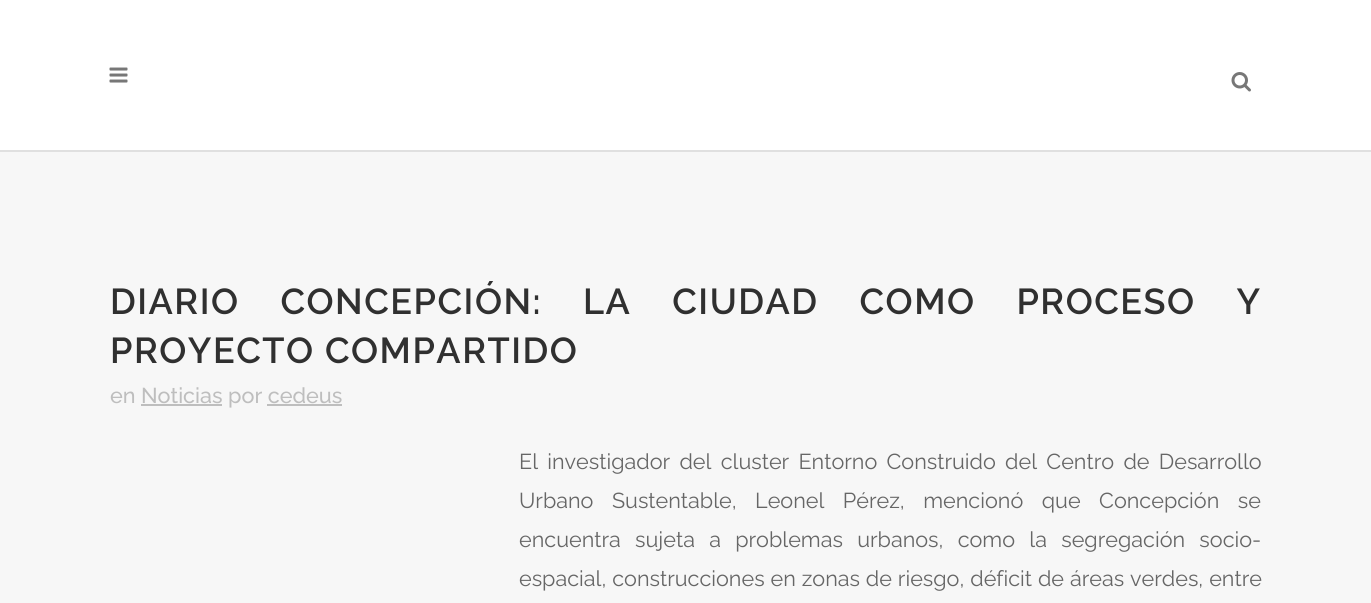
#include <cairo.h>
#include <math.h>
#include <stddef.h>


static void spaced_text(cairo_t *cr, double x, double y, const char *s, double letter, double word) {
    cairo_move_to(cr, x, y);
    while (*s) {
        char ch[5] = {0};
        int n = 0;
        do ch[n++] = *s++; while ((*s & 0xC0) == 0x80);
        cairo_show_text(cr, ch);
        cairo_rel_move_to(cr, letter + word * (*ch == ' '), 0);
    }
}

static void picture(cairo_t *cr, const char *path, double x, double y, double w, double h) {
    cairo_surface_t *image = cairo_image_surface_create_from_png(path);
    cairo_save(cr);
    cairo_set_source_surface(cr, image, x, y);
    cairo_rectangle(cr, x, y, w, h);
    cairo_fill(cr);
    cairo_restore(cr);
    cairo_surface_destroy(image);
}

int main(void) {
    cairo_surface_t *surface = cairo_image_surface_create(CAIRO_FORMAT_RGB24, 1371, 603);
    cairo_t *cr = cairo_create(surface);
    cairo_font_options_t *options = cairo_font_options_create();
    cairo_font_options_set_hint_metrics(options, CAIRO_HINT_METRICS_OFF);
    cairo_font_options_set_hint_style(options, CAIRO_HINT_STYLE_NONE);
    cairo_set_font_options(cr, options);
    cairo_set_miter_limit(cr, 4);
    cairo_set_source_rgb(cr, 0.965, 0.965, 0.965);
    cairo_paint(cr);
    cairo_set_source_rgb(cr, 1, 1, 1);
    cairo_rectangle(cr, 0, 0, 1371, 150);
    cairo_fill(cr);
    cairo_set_source_rgb(cr, 0.878, 0.878, 0.878);
    cairo_rectangle(cr, 0, 150, 1371, 2);
    cairo_fill(cr);
    picture(cr, "img1.png", 109, 67, 19, 16);
    picture(cr, "img2.png", 1231, 72, 20, 20);
    cairo_select_font_face(cr, "Raleway SemiBold", CAIRO_FONT_SLANT_NORMAL, CAIRO_FONT_WEIGHT_NORMAL);
    cairo_set_font_size(cr, 36);
    cairo_set_source_rgb(cr, 0.188, 0.188, 0.188);
    spaced_text(cr, 110, 314, "DIARIO CONCEPCIÓN: LA CIUDAD COMO PROCESO Y", 1.5, 30.5);
    spaced_text(cr, 110, 363, "PROYECTO COMPARTIDO", 1.5, 0);
    cairo_select_font_face(cr, "Raleway Medium", CAIRO_FONT_SLANT_NORMAL, CAIRO_FONT_WEIGHT_NORMAL);
    cairo_set_font_size(cr, 21.6);
    cairo_set_source_rgb(cr, 0.745, 0.745, 0.745);
    cairo_move_to(cr, 110, 403);
    cairo_show_text(cr, "en Noticias por cedeus");
    cairo_rectangle(cr, 141, 404, 81, 2);
    cairo_fill(cr);
    cairo_rectangle(cr, 267, 404, 75, 2);
    cairo_fill(cr);
    cairo_select_font_face(cr, "Raleway", CAIRO_FONT_SLANT_NORMAL, CAIRO_FONT_WEIGHT_NORMAL);
    cairo_set_source_rgb(cr, 0.4, 0.4, 0.4);
    spaced_text(cr, 519, 469, "El investigador del cluster Entorno Construido del Centro de Desarrollo", 0, 3.75);
    spaced_text(cr, 519, 508, "Urbano Sustentable, Leonel Pérez, mencionó que Concepción se", 0, 13);
    spaced_text(cr, 519, 547, "encuentra sujeta a problemas urbanos, como la segregación socio-", 0, 8.75);
    spaced_text(cr, 519, 586, "espacial, construcciones en zonas de riesgo, déficit de áreas verdes, entre", 0, 0.4);
    cairo_surface_write_to_png(surface, "page.png");
    cairo_font_options_destroy(options);
    cairo_destroy(cr);
    cairo_surface_destroy(surface);
    return 0;
}
